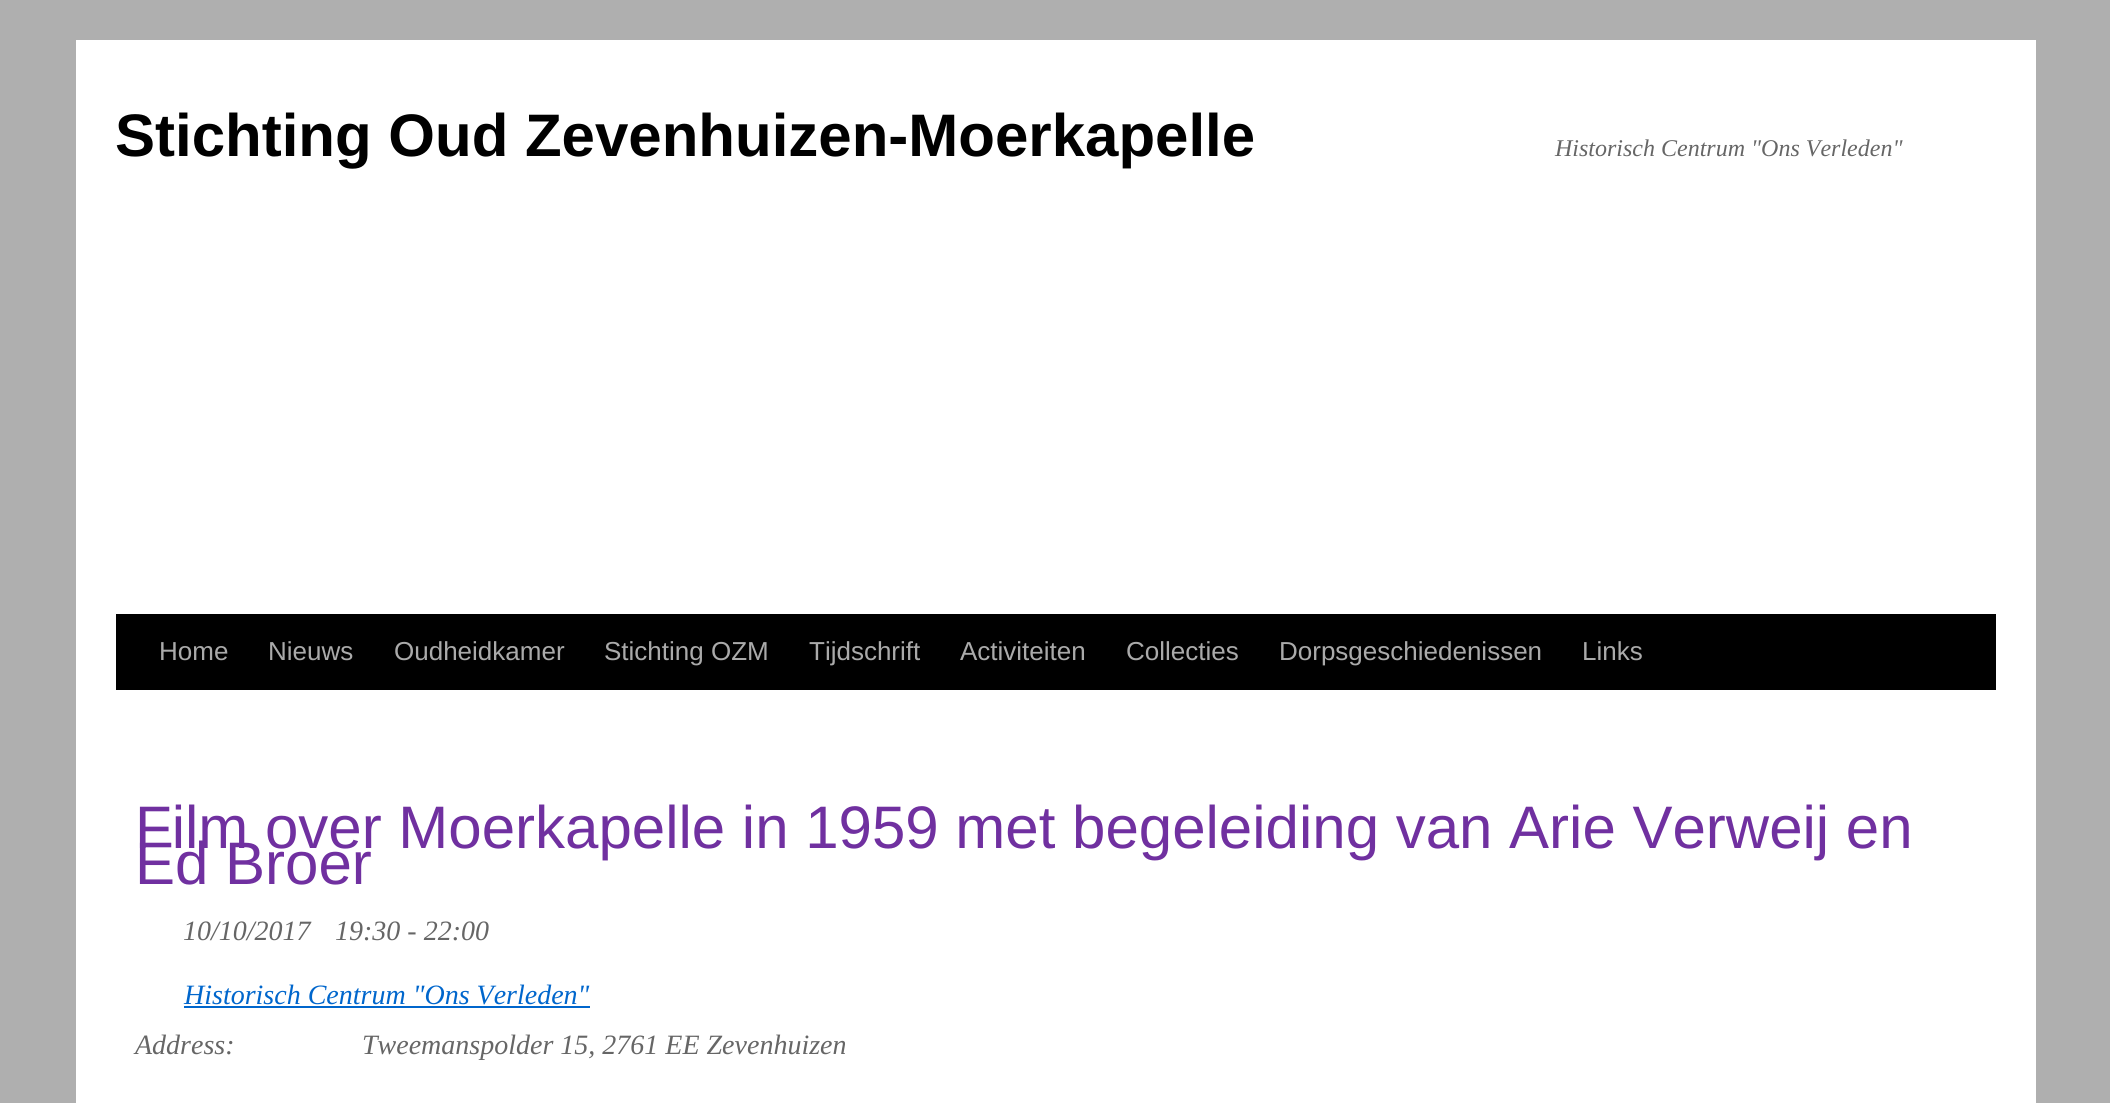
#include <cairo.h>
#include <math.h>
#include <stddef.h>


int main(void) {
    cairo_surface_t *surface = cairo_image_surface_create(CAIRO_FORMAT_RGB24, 2110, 1103);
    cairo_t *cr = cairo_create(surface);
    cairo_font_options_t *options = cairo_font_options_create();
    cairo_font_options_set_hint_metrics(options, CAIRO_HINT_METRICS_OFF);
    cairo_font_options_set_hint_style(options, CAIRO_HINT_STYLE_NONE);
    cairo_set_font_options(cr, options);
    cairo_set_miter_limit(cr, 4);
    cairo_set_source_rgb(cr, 0.686, 0.686, 0.686);
    cairo_paint(cr);
    cairo_set_source_rgb(cr, 1, 1, 1);
    cairo_rectangle(cr, 76, 40, 1960, 1063);
    cairo_fill(cr);
    cairo_select_font_face(cr, "Liberation Sans", CAIRO_FONT_SLANT_NORMAL, CAIRO_FONT_WEIGHT_BOLD);
    cairo_set_font_size(cr, 60);
    cairo_set_source_rgb(cr, 0, 0, 0);
    cairo_move_to(cr, 115, 156);
    cairo_show_text(cr, "Stichting Oud Zevenhuizen-Moerkapelle");
    cairo_select_font_face(cr, "Liberation Serif", CAIRO_FONT_SLANT_ITALIC, CAIRO_FONT_WEIGHT_NORMAL);
    cairo_set_font_size(cr, 24);
    cairo_set_source_rgb(cr, 0.4, 0.4, 0.4);
    cairo_move_to(cr, 1555, 156);
    cairo_show_text(cr, "Historisch Centrum \"Ons Verleden\"");
    cairo_set_source_rgb(cr, 0, 0, 0);
    cairo_rectangle(cr, 116, 614, 1880, 76);
    cairo_fill(cr);
    cairo_select_font_face(cr, "Liberation Sans", CAIRO_FONT_SLANT_NORMAL, CAIRO_FONT_WEIGHT_NORMAL);
    cairo_set_font_size(cr, 26);
    cairo_set_source_rgb(cr, 0.667, 0.667, 0.667);
    cairo_move_to(cr, 159, 660);
    cairo_show_text(cr, "Home");
    cairo_move_to(cr, 268, 660);
    cairo_show_text(cr, "Nieuws");
    cairo_move_to(cr, 394, 660);
    cairo_show_text(cr, "Oudheidkamer");
    cairo_move_to(cr, 604, 660);
    cairo_show_text(cr, "Stichting OZM");
    cairo_move_to(cr, 809, 660);
    cairo_show_text(cr, "Tijdschrift");
    cairo_move_to(cr, 960, 660);
    cairo_show_text(cr, "Activiteiten");
    cairo_move_to(cr, 1126, 660);
    cairo_show_text(cr, "Collecties");
    cairo_move_to(cr, 1279, 660);
    cairo_show_text(cr, "Dorpsgeschiedenissen");
    cairo_move_to(cr, 1582, 660);
    cairo_show_text(cr, "Links");
    cairo_set_font_size(cr, 60);
    cairo_set_source_rgb(cr, 0.439, 0.188, 0.627);
    cairo_move_to(cr, 135, 848);
    cairo_show_text(cr, "Film over Moerkapelle in 1959 met begeleiding van Arie Verweij en");
    cairo_move_to(cr, 135, 884);
    cairo_show_text(cr, "Ed Broer");
    cairo_select_font_face(cr, "Liberation Serif", CAIRO_FONT_SLANT_ITALIC, CAIRO_FONT_WEIGHT_NORMAL);
    cairo_set_font_size(cr, 28);
    cairo_set_source_rgb(cr, 0.4, 0.4, 0.4);
    cairo_move_to(cr, 183, 940);
    cairo_show_text(cr, "10/10/2017");
    cairo_move_to(cr, 335, 940);
    cairo_show_text(cr, "19:30 - 22:00");
    cairo_set_source_rgb(cr, 0, 0.4, 0.8);
    cairo_move_to(cr, 184, 1004);
    cairo_show_text(cr, "Historisch Centrum \"Ons Verleden\"");
    cairo_rectangle(cr, 184, 1006, 406, 2);
    cairo_fill(cr);
    cairo_set_source_rgb(cr, 0.4, 0.4, 0.4);
    cairo_move_to(cr, 135, 1054);
    cairo_show_text(cr, "Address:");
    cairo_move_to(cr, 362, 1054);
    cairo_show_text(cr, "Tweemanspolder 15, 2761 EE Zevenhuizen");
    cairo_surface_write_to_png(surface, "page.png");
    cairo_font_options_destroy(options);
    cairo_destroy(cr);
    cairo_surface_destroy(surface);
    return 0;
}
